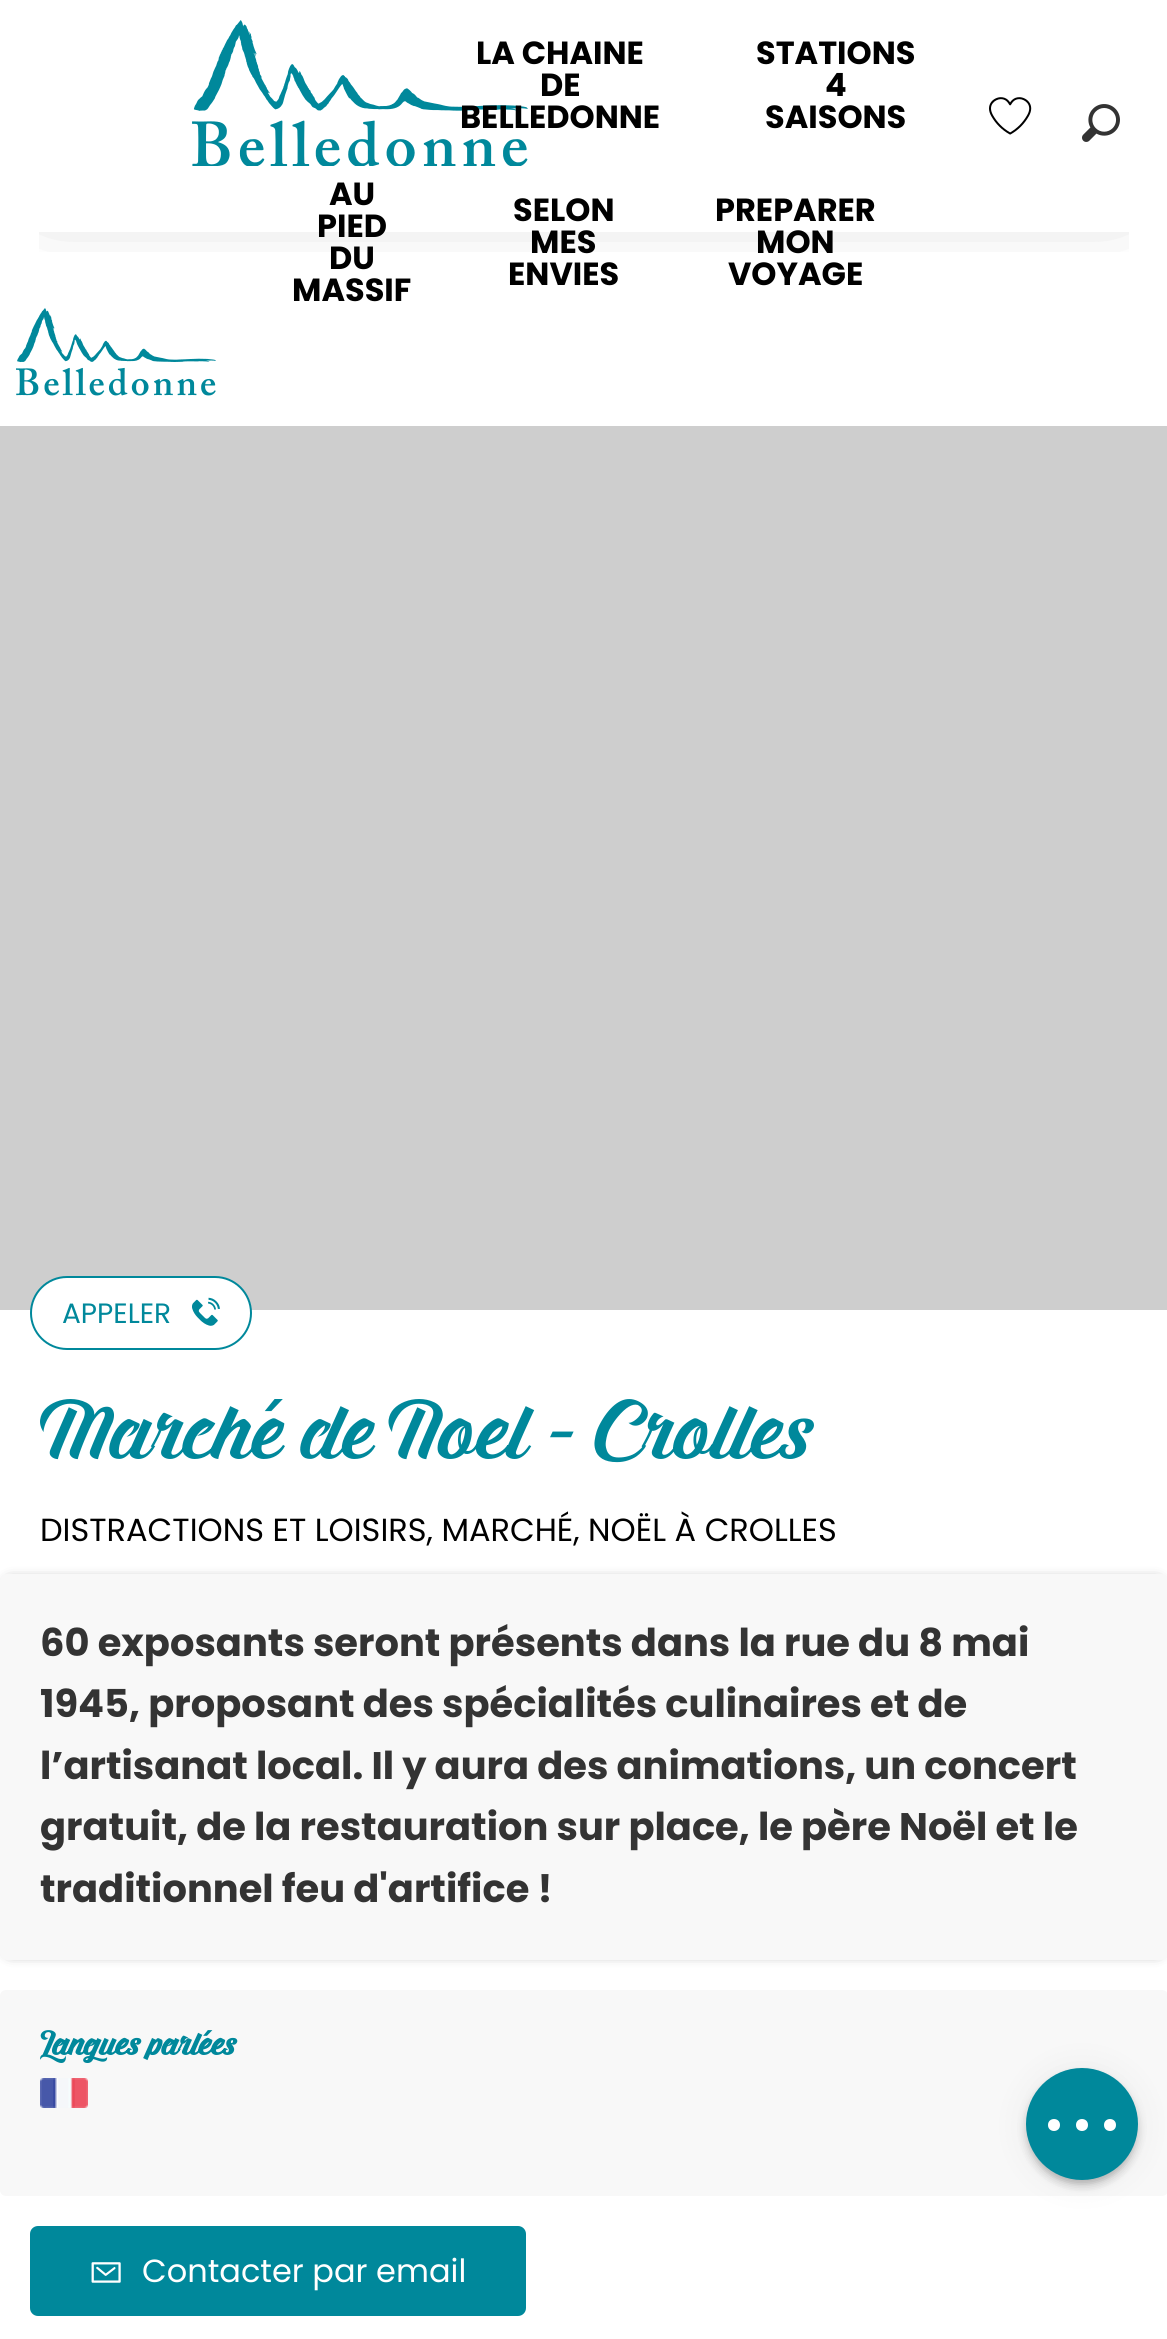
#include <cairo.h>
#include <math.h>
#include <stddef.h>


static void round_rect(cairo_t *cr, double x, double y, double w, double h, double r) {
    cairo_new_sub_path(cr);
    cairo_arc(cr, x + w - r, y + h - r, r, 0, M_PI / 2);
    cairo_arc(cr, x + r, y + h - r, r, M_PI / 2, M_PI);
    cairo_arc(cr, x + r, y + r, r, M_PI, 1.5 * M_PI);
    cairo_arc(cr, x + w - r, y + r, r, 1.5 * M_PI, 2 * M_PI);
    cairo_close_path(cr);
}

static void shadow(cairo_t *cr, double x, double y, double w, double h, double r, double blur, double alpha) {
    cairo_push_group_with_content(cr, CAIRO_CONTENT_ALPHA);
    cairo_set_operator(cr, CAIRO_OPERATOR_SOURCE);
    for (int i = 15; i >= -15 && fmin(w, h) + blur * i / 3 > 0; i -= 2) {
        double e = blur * i / 6;
        cairo_set_source_rgba(cr, 0, 0, 0, alpha * erfc((i - 1) / 8.5) / 2);
        round_rect(cr, x - e, y - e, w + 2 * e, h + 2 * e, fmax(0, fmin(r + e + blur * .6, fmin(w, h) / 2 + e)));
        cairo_fill(cr);
    }
    cairo_pattern_t *soft = cairo_pop_group(cr);
    cairo_mask(cr, soft);
    cairo_pattern_destroy(soft);
}

static void picture(cairo_t *cr, const char *path, double x, double y, double w, double h) {
    cairo_surface_t *image = cairo_image_surface_create_from_png(path);
    cairo_save(cr);
    cairo_set_source_surface(cr, image, x, y);
    cairo_rectangle(cr, x, y, w, h);
    cairo_fill(cr);
    cairo_restore(cr);
    cairo_surface_destroy(image);
}

int main(void) {
    cairo_surface_t *surface = cairo_image_surface_create(CAIRO_FORMAT_RGB24, 1167, 2339);
    cairo_t *cr = cairo_create(surface);
    cairo_font_options_t *options = cairo_font_options_create();
    cairo_font_options_set_hint_metrics(options, CAIRO_HINT_METRICS_OFF);
    cairo_font_options_set_hint_style(options, CAIRO_HINT_STYLE_NONE);
    cairo_set_font_options(cr, options);
    cairo_set_miter_limit(cr, 4);
    cairo_set_source_rgb(cr, 1, 1, 1);
    cairo_paint(cr);
    cairo_save(cr);
    cairo_rectangle(cr, 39, 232, 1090, 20);
    cairo_clip(cr);
    cairo_set_source_rgb(cr, 0, 0, 0);
    shadow(cr, 50, 50, 1068, 132, 0, 40, 0.5);
    cairo_restore(cr);
    picture(cr, "img1.png", 192, 20, 336, 146);
    cairo_select_font_face(cr, "Poppins", CAIRO_FONT_SLANT_NORMAL, CAIRO_FONT_WEIGHT_BOLD);
    cairo_set_font_size(cr, 32);
    cairo_set_source_rgb(cr, 0, 0, 0);
    cairo_move_to(cr, 476, 64);
    cairo_show_text(cr, "LA CHAINE");
    cairo_move_to(cr, 540, 96);
    cairo_show_text(cr, "DE");
    cairo_move_to(cr, 460, 128);
    cairo_show_text(cr, "BELLEDONNE");
    cairo_move_to(cr, 756, 64);
    cairo_show_text(cr, "STATIONS");
    cairo_move_to(cr, 825, 96);
    cairo_show_text(cr, "4");
    cairo_move_to(cr, 765, 128);
    cairo_show_text(cr, "SAISONS");
    cairo_move_to(cr, 329, 205);
    cairo_show_text(cr, "AU");
    cairo_move_to(cr, 317, 237);
    cairo_show_text(cr, "PIED");
    cairo_move_to(cr, 329, 269);
    cairo_show_text(cr, "DU");
    cairo_move_to(cr, 292, 301);
    cairo_show_text(cr, "MASSIF");
    cairo_move_to(cr, 513, 221);
    cairo_show_text(cr, "SELON");
    cairo_move_to(cr, 530, 253);
    cairo_show_text(cr, "MES");
    cairo_move_to(cr, 508, 285);
    cairo_show_text(cr, "ENVIES");
    cairo_move_to(cr, 715, 221);
    cairo_show_text(cr, "PREPARER");
    cairo_move_to(cr, 756, 253);
    cairo_show_text(cr, "MON");
    cairo_move_to(cr, 728, 285);
    cairo_show_text(cr, "VOYAGE");
    picture(cr, "img2.png", 989, 97, 43, 38);
    picture(cr, "img3.png", 1082, 104, 38, 38);
    picture(cr, "img4.png", 16, 308, 200, 88);
    cairo_set_source_rgb(cr, 0.808, 0.808, 0.808);
    cairo_rectangle(cr, 0, 426, 1167, 884);
    cairo_fill(cr);
    cairo_set_source_rgb(cr, 1, 1, 1);
    round_rect(cr, 31, 1277, 220, 72, 36);
    cairo_fill_preserve(cr);
    cairo_set_source_rgb(cr, 0, 0.533, 0.608);
    cairo_stroke(cr);
    cairo_select_font_face(cr, "Poppins", CAIRO_FONT_SLANT_NORMAL, CAIRO_FONT_WEIGHT_NORMAL);
    cairo_set_font_size(cr, 28);
    cairo_move_to(cr, 62, 1323);
    cairo_show_text(cr, "APPELER");
    picture(cr, "img5.png", 192, 1297, 28, 29);
    cairo_select_font_face(cr, "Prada", CAIRO_FONT_SLANT_NORMAL, CAIRO_FONT_WEIGHT_NORMAL);
    cairo_set_font_size(cr, 80);
    cairo_move_to(cr, 40, 1459);
    cairo_show_text(cr, "Marché de Noel - Crolles");
    cairo_select_font_face(cr, "Poppins", CAIRO_FONT_SLANT_NORMAL, CAIRO_FONT_WEIGHT_NORMAL);
    cairo_set_font_size(cr, 32);
    cairo_set_source_rgb(cr, 0, 0, 0);
    cairo_move_to(cr, 40, 1541);
    cairo_show_text(cr, "DISTRACTIONS ET LOISIRS, MARCHÉ, NOËL À CROLLES");
    cairo_set_source_rgb(cr, 0, 0, 0);
    shadow(cr, 10, 1584, 1148, 366, 0, 7, 1);
    cairo_set_source_rgb(cr, 0.969, 0.969, 0.969);
    round_rect(cr, 0, 1574, 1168, 386, 6);
    cairo_fill(cr);
    cairo_select_font_face(cr, "Poppins", CAIRO_FONT_SLANT_NORMAL, CAIRO_FONT_WEIGHT_BOLD);
    cairo_set_font_size(cr, 38.4);
    cairo_set_source_rgb(cr, 0.2, 0.2, 0.2);
    cairo_move_to(cr, 40, 1656);
    cairo_show_text(cr, "60 exposants seront présents dans la rue du 8 mai");
    cairo_move_to(cr, 40, 1717);
    cairo_show_text(cr, "1945, proposant des spécialités culinaires et de");
    cairo_move_to(cr, 40, 1779);
    cairo_show_text(cr, "l’artisanat local. Il y aura des animations, un concert");
    cairo_move_to(cr, 40, 1840);
    cairo_show_text(cr, "gratuit, de la restauration sur place, le père Noël et le");
    cairo_move_to(cr, 40, 1902);
    cairo_show_text(cr, "traditionnel feu d'artifice !");
    cairo_set_source_rgb(cr, 0.969, 0.969, 0.969);
    round_rect(cr, 0, 1990, 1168, 206, 6);
    cairo_fill(cr);
    cairo_select_font_face(cr, "Prada", CAIRO_FONT_SLANT_NORMAL, CAIRO_FONT_WEIGHT_BOLD);
    cairo_set_font_size(cr, 32);
    cairo_set_source_rgb(cr, 0, 0.533, 0.608);
    cairo_move_to(cr, 40, 2055);
    cairo_show_text(cr, "Langues parlées");
    picture(cr, "img6.png", 40, 2078, 48, 30);
    round_rect(cr, 30, 2226, 496, 90, 8);
    cairo_fill(cr);
    picture(cr, "img7.png", 91, 2262, 30, 21);
    cairo_select_font_face(cr, "Poppins", CAIRO_FONT_SLANT_NORMAL, CAIRO_FONT_WEIGHT_NORMAL);
    cairo_set_source_rgb(cr, 1, 1, 1);
    cairo_move_to(cr, 142, 2282);
    cairo_show_text(cr, "Contacter par email");
    cairo_set_source_rgb(cr, 0, 0, 0);
    shadow(cr, 1028, 2076, 108, 108, 54, 5, 0.3);
    shadow(cr, 1026, 2070, 112, 112, 56, 18, 0.06);
    cairo_set_source_rgb(cr, 0, 0.533, 0.608);
    cairo_arc(cr, 1082, 2124, 55, 0, 2 * M_PI);
    cairo_fill_preserve(cr);
    cairo_stroke(cr);
    cairo_set_source_rgb(cr, 1, 1, 1);
    cairo_new_path(cr);
    cairo_move_to(cr, 1060, 2125);
    cairo_curve_to(cr, 1060, 2133, 1048, 2133, 1048, 2125);
    cairo_curve_to(cr, 1048, 2117, 1060, 2117, 1060, 2125);
    cairo_close_path(cr);
    cairo_move_to(cr, 1088, 2125);
    cairo_curve_to(cr, 1088, 2133, 1076, 2133, 1076, 2125);
    cairo_curve_to(cr, 1076, 2117, 1088, 2117, 1088, 2125);
    cairo_close_path(cr);
    cairo_move_to(cr, 1116, 2125);
    cairo_curve_to(cr, 1116, 2133, 1104, 2133, 1104, 2125);
    cairo_curve_to(cr, 1104, 2117, 1116, 2117, 1116, 2125);
    cairo_close_path(cr);
    cairo_fill(cr);
    cairo_surface_write_to_png(surface, "page.png");
    cairo_font_options_destroy(options);
    cairo_destroy(cr);
    cairo_surface_destroy(surface);
    return 0;
}
